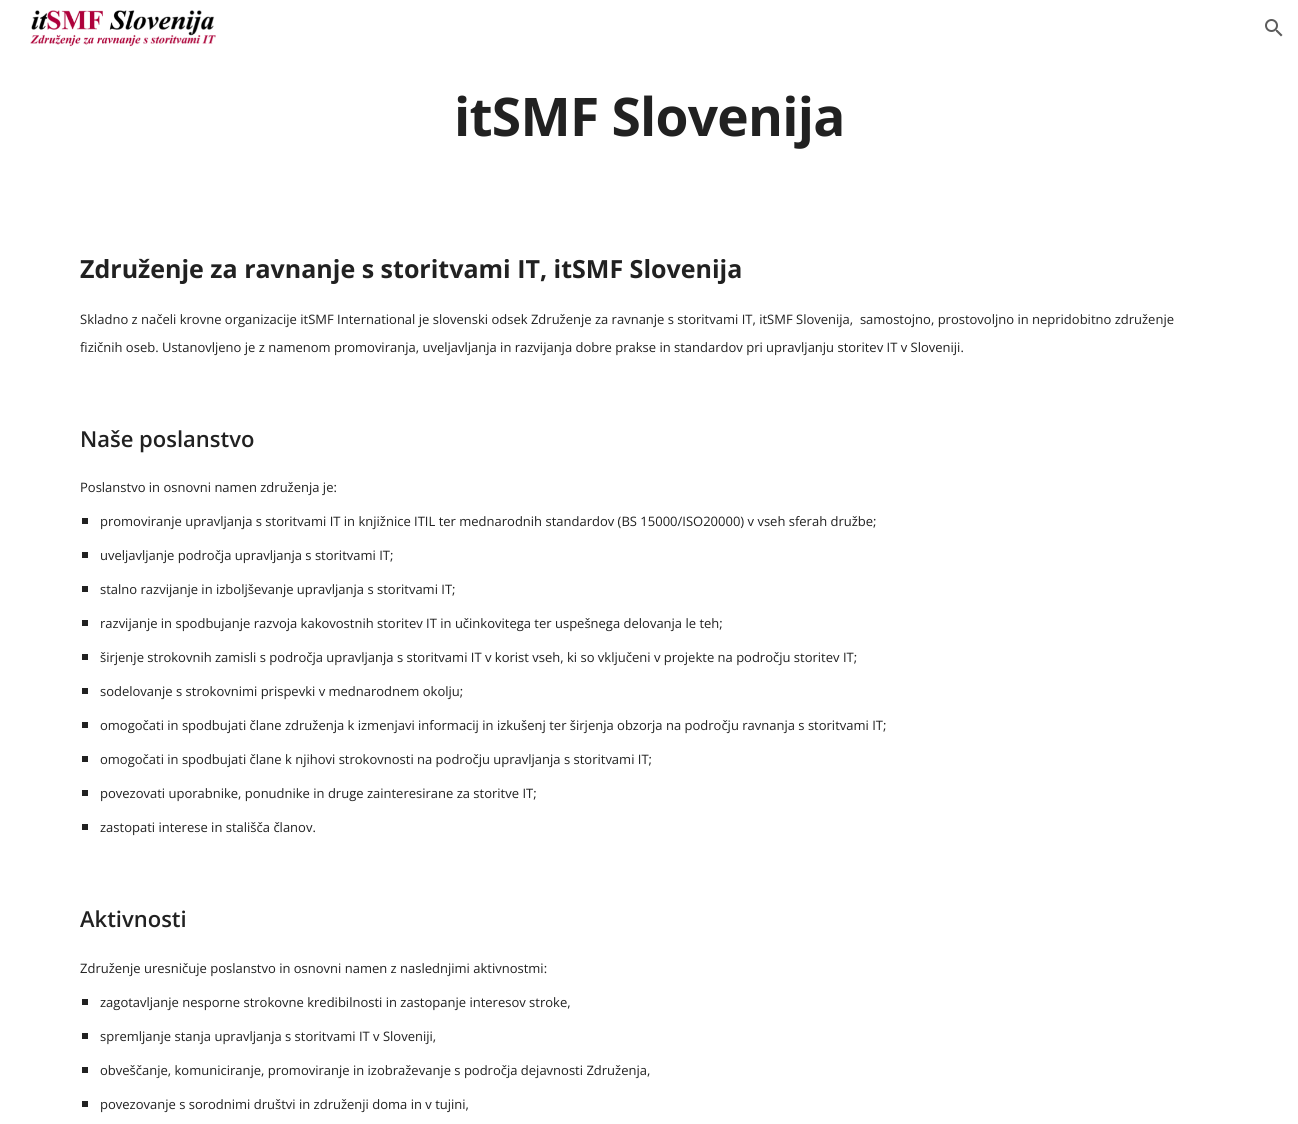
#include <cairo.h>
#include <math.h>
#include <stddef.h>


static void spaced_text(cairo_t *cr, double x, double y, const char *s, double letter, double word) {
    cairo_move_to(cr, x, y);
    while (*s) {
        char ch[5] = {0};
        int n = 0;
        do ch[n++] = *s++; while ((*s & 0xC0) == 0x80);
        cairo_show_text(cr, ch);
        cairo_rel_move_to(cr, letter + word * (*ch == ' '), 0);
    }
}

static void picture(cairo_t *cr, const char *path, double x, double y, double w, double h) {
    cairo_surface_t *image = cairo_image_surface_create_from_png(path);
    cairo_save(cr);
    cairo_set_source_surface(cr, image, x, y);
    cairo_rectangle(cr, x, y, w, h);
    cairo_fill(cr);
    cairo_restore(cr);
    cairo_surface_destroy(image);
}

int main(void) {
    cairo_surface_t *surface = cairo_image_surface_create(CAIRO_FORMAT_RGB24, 1298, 1124);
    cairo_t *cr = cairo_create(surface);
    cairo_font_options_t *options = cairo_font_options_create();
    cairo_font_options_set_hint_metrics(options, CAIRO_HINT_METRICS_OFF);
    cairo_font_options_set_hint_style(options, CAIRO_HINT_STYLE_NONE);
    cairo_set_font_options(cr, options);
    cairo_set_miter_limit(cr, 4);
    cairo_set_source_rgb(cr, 1, 1, 1);
    cairo_paint(cr);
    picture(cr, "img1.png", 30, 10, 186, 37);
    picture(cr, "img2.png", 1265, 19, 18, 18);
    cairo_select_font_face(cr, "Open Sans", CAIRO_FONT_SLANT_NORMAL, CAIRO_FONT_WEIGHT_BOLD);
    cairo_set_font_size(cr, 53.25);
    cairo_set_source_rgb(cr, 0.129, 0.129, 0.129);
    spaced_text(cr, 454, 136, "itSMF Slovenija", -0.75, 0);
    cairo_set_font_size(cr, 25);
    cairo_move_to(cr, 80, 278);
    cairo_show_text(cr, "Združenje za ravnanje s storitvami IT, itSMF Slovenija");
    cairo_select_font_face(cr, "Open Sans", CAIRO_FONT_SLANT_NORMAL, CAIRO_FONT_WEIGHT_NORMAL);
    cairo_set_font_size(cr, 13);
    cairo_move_to(cr, 80, 324);
    cairo_show_text(cr, "Skladno z načeli krovne organizacije itSMF International je slovenski odsek Združenje za ravnanje s storitvami IT, itSMF Slovenija,  samostojno, prostovoljno in nepridobitno združenje");
    cairo_move_to(cr, 80, 352);
    cairo_show_text(cr, "fizičnih oseb. Ustanovljeno je z namenom promoviranja, uveljavljanja in razvijanja dobre prakse in standardov pri upravljanju storitev IT v Sloveniji.");
    cairo_select_font_face(cr, "Open Sans SemiBold", CAIRO_FONT_SLANT_NORMAL, CAIRO_FONT_WEIGHT_NORMAL);
    cairo_set_font_size(cr, 22);
    cairo_move_to(cr, 80, 447);
    cairo_show_text(cr, "Naše poslanstvo");
    cairo_select_font_face(cr, "Open Sans", CAIRO_FONT_SLANT_NORMAL, CAIRO_FONT_WEIGHT_NORMAL);
    cairo_set_font_size(cr, 13);
    cairo_move_to(cr, 80, 492);
    cairo_show_text(cr, "Poslanstvo in osnovni namen združenja je:");
    cairo_rectangle(cr, 82, 518, 6, 6);
    cairo_fill(cr);
    cairo_move_to(cr, 100, 526);
    cairo_show_text(cr, "promoviranje upravljanja s storitvami IT in knjižnice ITIL ter mednarodnih standardov (BS 15000/ISO20000) v vseh sferah družbe;");
    cairo_rectangle(cr, 82, 552, 6, 6);
    cairo_fill(cr);
    cairo_move_to(cr, 100, 560);
    cairo_show_text(cr, "uveljavljanje področja upravljanja s storitvami IT;");
    cairo_rectangle(cr, 82, 586, 6, 6);
    cairo_fill(cr);
    cairo_move_to(cr, 100, 594);
    cairo_show_text(cr, "stalno razvijanje in izboljševanje upravljanja s storitvami IT;");
    cairo_rectangle(cr, 82, 620, 6, 6);
    cairo_fill(cr);
    cairo_move_to(cr, 100, 628);
    cairo_show_text(cr, "razvijanje in spodbujanje razvoja kakovostnih storitev IT in učinkovitega ter uspešnega delovanja le teh;");
    cairo_rectangle(cr, 82, 654, 6, 6);
    cairo_fill(cr);
    cairo_move_to(cr, 100, 662);
    cairo_show_text(cr, "širjenje strokovnih zamisli s področja upravljanja s storitvami IT v korist vseh, ki so vključeni v projekte na področju storitev IT;");
    cairo_rectangle(cr, 82, 688, 6, 6);
    cairo_fill(cr);
    cairo_move_to(cr, 100, 696);
    cairo_show_text(cr, "sodelovanje s strokovnimi prispevki v mednarodnem okolju;");
    cairo_rectangle(cr, 82, 722, 6, 6);
    cairo_fill(cr);
    cairo_move_to(cr, 100, 730);
    cairo_show_text(cr, "omogočati in spodbujati člane združenja k izmenjavi informacij in izkušenj ter širjenja obzorja na področju ravnanja s storitvami IT;");
    cairo_rectangle(cr, 82, 756, 6, 6);
    cairo_fill(cr);
    cairo_move_to(cr, 100, 764);
    cairo_show_text(cr, "omogočati in spodbujati člane k njihovi strokovnosti na področju upravljanja s storitvami IT;");
    cairo_rectangle(cr, 82, 790, 6, 6);
    cairo_fill(cr);
    cairo_move_to(cr, 100, 798);
    cairo_show_text(cr, "povezovati uporabnike, ponudnike in druge zainteresirane za storitve IT;");
    cairo_rectangle(cr, 82, 824, 6, 6);
    cairo_fill(cr);
    cairo_move_to(cr, 100, 832);
    cairo_show_text(cr, "zastopati interese in stališča članov.");
    cairo_select_font_face(cr, "Open Sans SemiBold", CAIRO_FONT_SLANT_NORMAL, CAIRO_FONT_WEIGHT_NORMAL);
    cairo_set_font_size(cr, 22);
    cairo_move_to(cr, 80, 927);
    cairo_show_text(cr, "Aktivnosti");
    cairo_select_font_face(cr, "Open Sans", CAIRO_FONT_SLANT_NORMAL, CAIRO_FONT_WEIGHT_NORMAL);
    cairo_set_font_size(cr, 13);
    cairo_move_to(cr, 80, 973);
    cairo_show_text(cr, "Združenje uresničuje poslanstvo in osnovni namen z naslednjimi aktivnostmi:");
    cairo_rectangle(cr, 82, 999, 6, 6);
    cairo_fill(cr);
    cairo_move_to(cr, 100, 1007);
    cairo_show_text(cr, "zagotavljanje nesporne strokovne kredibilnosti in zastopanje interesov stroke,");
    cairo_rectangle(cr, 82, 1033, 6, 6);
    cairo_fill(cr);
    cairo_move_to(cr, 100, 1041);
    cairo_show_text(cr, "spremljanje stanja upravljanja s storitvami IT v Sloveniji,");
    cairo_rectangle(cr, 82, 1067, 6, 6);
    cairo_fill(cr);
    cairo_move_to(cr, 100, 1075);
    cairo_show_text(cr, "obveščanje, komuniciranje, promoviranje in izobraževanje s področja dejavnosti Združenja,");
    cairo_rectangle(cr, 82, 1101, 6, 6);
    cairo_fill(cr);
    cairo_move_to(cr, 100, 1109);
    cairo_show_text(cr, "povezovanje s sorodnimi društvi in združenji doma in v tujini,");
    cairo_surface_write_to_png(surface, "page.png");
    cairo_font_options_destroy(options);
    cairo_destroy(cr);
    cairo_surface_destroy(surface);
    return 0;
}
